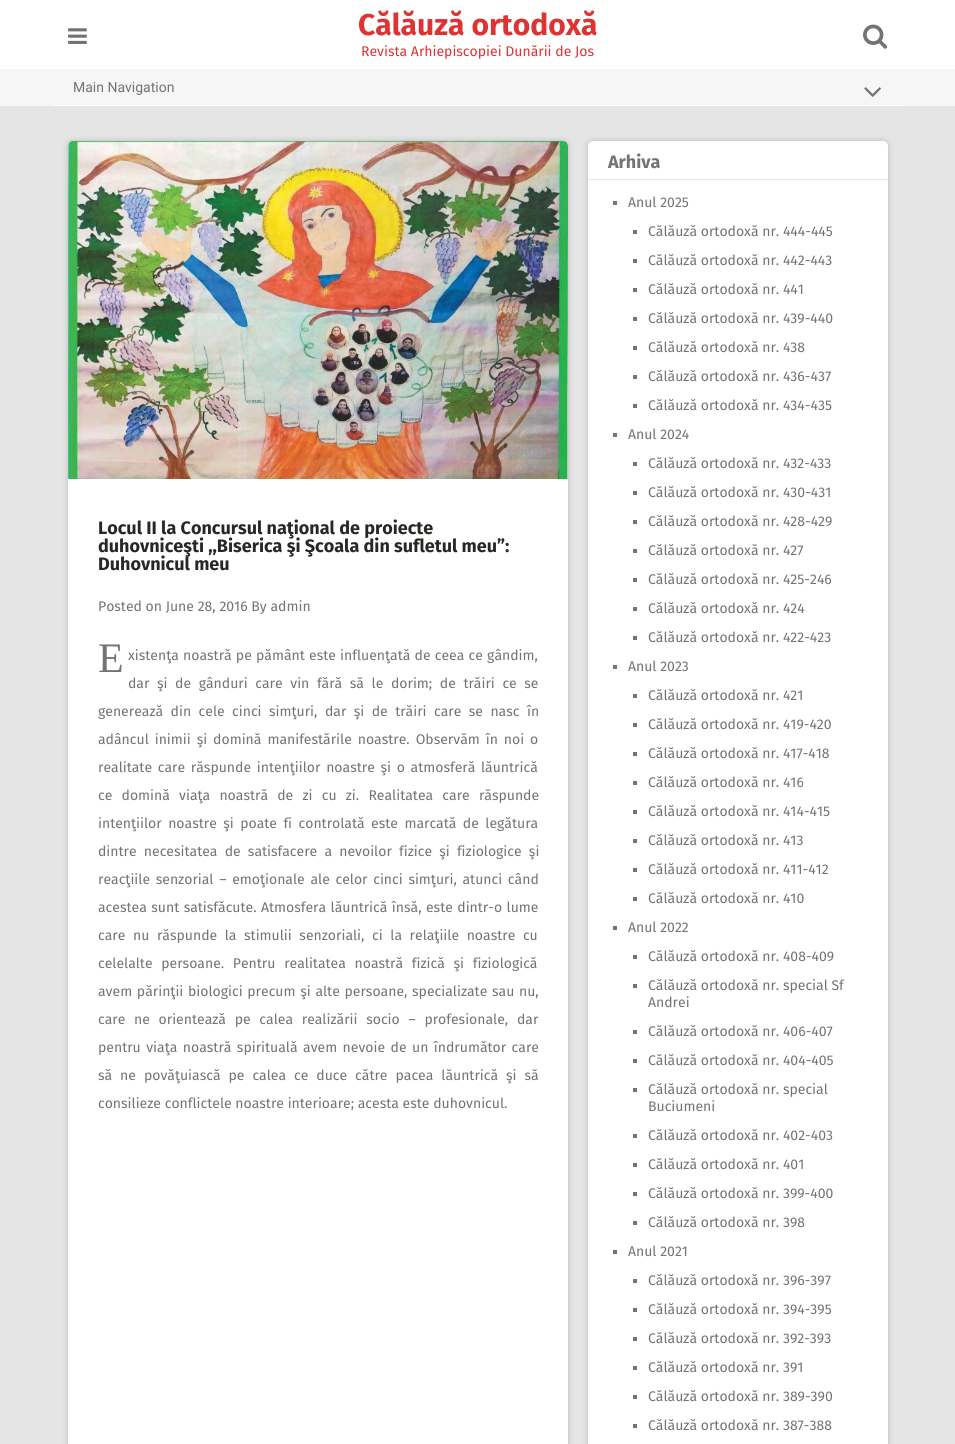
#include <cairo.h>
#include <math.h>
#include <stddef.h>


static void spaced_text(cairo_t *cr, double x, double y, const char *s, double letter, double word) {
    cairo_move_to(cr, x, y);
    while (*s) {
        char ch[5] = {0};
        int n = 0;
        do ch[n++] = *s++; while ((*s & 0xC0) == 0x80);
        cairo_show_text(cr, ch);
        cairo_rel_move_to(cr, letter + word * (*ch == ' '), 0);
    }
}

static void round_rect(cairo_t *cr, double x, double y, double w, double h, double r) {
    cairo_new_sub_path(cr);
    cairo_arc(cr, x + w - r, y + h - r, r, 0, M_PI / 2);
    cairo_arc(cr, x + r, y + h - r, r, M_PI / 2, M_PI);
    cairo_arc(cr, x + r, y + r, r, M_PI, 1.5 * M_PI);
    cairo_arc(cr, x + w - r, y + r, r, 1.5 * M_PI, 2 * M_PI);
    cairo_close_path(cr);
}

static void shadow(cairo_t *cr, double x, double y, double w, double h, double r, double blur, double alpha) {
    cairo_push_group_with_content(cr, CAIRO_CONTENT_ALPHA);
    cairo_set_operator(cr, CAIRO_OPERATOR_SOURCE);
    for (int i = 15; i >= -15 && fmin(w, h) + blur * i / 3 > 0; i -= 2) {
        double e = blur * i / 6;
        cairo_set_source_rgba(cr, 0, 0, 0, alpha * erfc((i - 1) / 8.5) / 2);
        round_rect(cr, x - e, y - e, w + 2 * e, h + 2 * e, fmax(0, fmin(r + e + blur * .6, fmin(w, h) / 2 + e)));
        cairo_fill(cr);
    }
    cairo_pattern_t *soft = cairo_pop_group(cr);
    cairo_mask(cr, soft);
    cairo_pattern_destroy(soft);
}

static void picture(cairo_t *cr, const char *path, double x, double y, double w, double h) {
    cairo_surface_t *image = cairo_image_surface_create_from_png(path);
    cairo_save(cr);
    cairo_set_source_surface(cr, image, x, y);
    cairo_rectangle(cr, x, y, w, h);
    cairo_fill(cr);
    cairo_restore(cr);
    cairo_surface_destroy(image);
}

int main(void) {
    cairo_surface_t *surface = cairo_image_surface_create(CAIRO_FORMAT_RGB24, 955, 1444);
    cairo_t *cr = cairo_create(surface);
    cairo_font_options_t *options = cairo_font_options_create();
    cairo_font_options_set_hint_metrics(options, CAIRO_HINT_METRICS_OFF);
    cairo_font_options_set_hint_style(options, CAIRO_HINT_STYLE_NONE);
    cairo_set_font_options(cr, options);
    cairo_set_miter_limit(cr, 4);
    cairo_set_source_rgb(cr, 0.898, 0.898, 0.898);
    cairo_paint(cr);
    cairo_set_source_rgb(cr, 1, 1, 1);
    cairo_rectangle(cr, 0, 0, 955, 69);
    cairo_fill(cr);
    picture(cr, "img1.png", 68, 28, 19, 16);
    cairo_select_font_face(cr, "Fira Sans", CAIRO_FONT_SLANT_NORMAL, CAIRO_FONT_WEIGHT_BOLD);
    cairo_set_font_size(cr, 30);
    cairo_set_source_rgb(cr, 0.867, 0.2, 0.2);
    cairo_move_to(cr, 358, 35);
    cairo_show_text(cr, "Călăuză ortodoxă");
    cairo_select_font_face(cr, "Fira Sans", CAIRO_FONT_SLANT_NORMAL, CAIRO_FONT_WEIGHT_NORMAL);
    cairo_set_font_size(cr, 14);
    cairo_move_to(cr, 361, 56);
    cairo_show_text(cr, "Revista Arhiepiscopiei Dunării de Jos");
    picture(cr, "img2.png", 863, 24, 25, 25);
    cairo_set_source_rgb(cr, 0.961, 0.961, 0.961);
    cairo_rectangle(cr, 0, 69, 955, 37);
    cairo_fill(cr);
    cairo_set_source_rgb(cr, 1, 1, 1);
    cairo_rectangle(cr, 53, 105, 850, 1);
    cairo_fill(cr);
    cairo_select_font_face(cr, "Roboto", CAIRO_FONT_SLANT_NORMAL, CAIRO_FONT_WEIGHT_NORMAL);
    cairo_set_source_rgb(cr, 0.451, 0.451, 0.451);
    cairo_move_to(cr, 73, 92);
    cairo_show_text(cr, "Main Navigation");
    picture(cr, "img3.png", 864, 87, 17, 10);
    cairo_set_source_rgb(cr, 0, 0, 0);
    shadow(cr, 68, 141, 500, 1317, 5, 3, 0.2);
    cairo_set_source_rgb(cr, 1, 1, 1);
    round_rect(cr, 68, 141, 500, 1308, 5);
    cairo_fill(cr);
    picture(cr, "img4.png", 68, 141, 500, 338);
    cairo_select_font_face(cr, "Fira Sans", CAIRO_FONT_SLANT_NORMAL, CAIRO_FONT_WEIGHT_BOLD);
    cairo_set_font_size(cr, 18);
    cairo_set_source_rgb(cr, 0.157, 0.153, 0.141);
    cairo_move_to(cr, 98, 534);
    cairo_show_text(cr, "Locul II la Concursul naţional de proiecte");
    cairo_move_to(cr, 98, 552);
    cairo_show_text(cr, "duhovniceşti ,,Biserica şi Şcoala din sufletul meu”:");
    cairo_move_to(cr, 98, 570);
    cairo_show_text(cr, "Duhovnicul meu");
    cairo_select_font_face(cr, "Fira Sans", CAIRO_FONT_SLANT_NORMAL, CAIRO_FONT_WEIGHT_NORMAL);
    cairo_set_font_size(cr, 14);
    cairo_set_source_rgb(cr, 0.451, 0.451, 0.451);
    cairo_move_to(cr, 98, 611);
    cairo_show_text(cr, "Posted on June 28, 2016 By admin");
    cairo_select_font_face(cr, "Liberation Serif", CAIRO_FONT_SLANT_NORMAL, CAIRO_FONT_WEIGHT_NORMAL);
    cairo_set_font_size(cr, 42);
    cairo_move_to(cr, 98, 672);
    cairo_show_text(cr, "E");
    cairo_select_font_face(cr, "Fira Sans", CAIRO_FONT_SLANT_NORMAL, CAIRO_FONT_WEIGHT_NORMAL);
    cairo_set_font_size(cr, 14);
    spaced_text(cr, 128, 660, "xistenţa noastră pe pământ este influenţată de ceea ce gândim,", 0, 0.5);
    spaced_text(cr, 128, 688, "dar şi de gânduri care vin fără să le dorim; de trăiri ce se", 0, 3.9);
    spaced_text(cr, 98, 716, "generează din cele cinci simţuri, dar şi de trăiri care se nasc în", 0, 3.75);
    spaced_text(cr, 98, 744, "adâncul inimii şi domină manifestările noastre. Observăm în noi o", 0, 2.25);
    spaced_text(cr, 98, 772, "realitate care răspunde intenţiilor noastre şi o atmosferă lăuntrică", 0, 2);
    spaced_text(cr, 98, 800, "ce domină viaţa noastră de zi cu zi. Realitatea care răspunde", 0, 5.5);
    spaced_text(cr, 98, 828, "intenţiilor noastre şi poate fi controlată este marcată de legătura", 0, 2.75);
    spaced_text(cr, 98, 856, "dintre necesitatea de satisfacere a nevoilor fizice şi fiziologice şi", 0, 3.5);
    spaced_text(cr, 98, 884, "reacţiile senzorial – emoţionale ale celor cinci simţuri, atunci când", 0, 2);
    spaced_text(cr, 98, 912, "acestea sunt satisfăcute. Atmosfera lăuntrică însă, este dintr-o lume", 0, 0.75);
    spaced_text(cr, 98, 940, "care nu răspunde la stimulii senzoriali, ci la relaţiile noastre cu", 0, 3.9);
    spaced_text(cr, 98, 968, "celelalte persoane. Pentru realitatea noastră fizică şi fiziologică", 0, 5);
    spaced_text(cr, 98, 996, "avem părinţii biologici precum şi alte persoane, specializate sau nu,", 0, 1);
    spaced_text(cr, 98, 1024, "care ne orientează pe calea realizării socio – profesionale, dar", 0, 5);
    spaced_text(cr, 98, 1052, "pentru viaţa noastră spirituală avem nevoie de un îndrumător care", 0, 1.75);
    spaced_text(cr, 98, 1080, "să ne povăţuiască pe calea ce duce către pacea lăuntrică şi să", 0, 4.25);
    cairo_move_to(cr, 98, 1108);
    cairo_show_text(cr, "consilieze conflictele noastre interioare; acesta este duhovnicul.");
    cairo_set_source_rgb(cr, 0, 0, 0);
    shadow(cr, 588, 141, 300, 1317, 5, 3, 0.2);
    cairo_set_source_rgb(cr, 1, 1, 1);
    round_rect(cr, 588, 141, 300, 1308, 5);
    cairo_fill(cr);
    cairo_set_source_rgb(cr, 0.914, 0.914, 0.914);
    cairo_rectangle(cr, 588, 179, 300, 1);
    cairo_fill(cr);
    cairo_select_font_face(cr, "Fira Sans", CAIRO_FONT_SLANT_NORMAL, CAIRO_FONT_WEIGHT_BOLD);
    cairo_set_font_size(cr, 18);
    cairo_set_source_rgb(cr, 0.451, 0.451, 0.451);
    cairo_move_to(cr, 608, 168);
    cairo_show_text(cr, "Arhiva");
    cairo_rectangle(cr, 613, 201, 4, 4);
    cairo_fill(cr);
    cairo_select_font_face(cr, "Fira Sans", CAIRO_FONT_SLANT_NORMAL, CAIRO_FONT_WEIGHT_NORMAL);
    cairo_set_font_size(cr, 14);
    cairo_move_to(cr, 628, 207);
    cairo_show_text(cr, "Anul 2025");
    cairo_rectangle(cr, 633, 230, 4, 4);
    cairo_fill(cr);
    cairo_move_to(cr, 648, 236);
    cairo_show_text(cr, "Călăuză ortodoxă nr. 444-445");
    cairo_rectangle(cr, 633, 259, 4, 4);
    cairo_fill(cr);
    cairo_move_to(cr, 648, 265);
    cairo_show_text(cr, "Călăuză ortodoxă nr. 442-443");
    cairo_rectangle(cr, 633, 288, 4, 4);
    cairo_fill(cr);
    cairo_move_to(cr, 648, 294);
    cairo_show_text(cr, "Călăuză ortodoxă nr. 441");
    cairo_rectangle(cr, 633, 317, 4, 4);
    cairo_fill(cr);
    cairo_move_to(cr, 648, 323);
    cairo_show_text(cr, "Călăuză ortodoxă nr. 439-440");
    cairo_rectangle(cr, 633, 346, 4, 4);
    cairo_fill(cr);
    cairo_move_to(cr, 648, 352);
    cairo_show_text(cr, "Călăuză ortodoxă nr. 438");
    cairo_rectangle(cr, 633, 375, 4, 4);
    cairo_fill(cr);
    cairo_move_to(cr, 648, 381);
    cairo_show_text(cr, "Călăuză ortodoxă nr. 436-437");
    cairo_rectangle(cr, 633, 404, 4, 4);
    cairo_fill(cr);
    cairo_move_to(cr, 648, 410);
    cairo_show_text(cr, "Călăuză ortodoxă nr. 434-435");
    cairo_rectangle(cr, 613, 433, 4, 4);
    cairo_fill(cr);
    cairo_move_to(cr, 628, 439);
    cairo_show_text(cr, "Anul 2024");
    cairo_rectangle(cr, 633, 462, 4, 4);
    cairo_fill(cr);
    cairo_move_to(cr, 648, 468);
    cairo_show_text(cr, "Călăuză ortodoxă nr. 432-433");
    cairo_rectangle(cr, 633, 491, 4, 4);
    cairo_fill(cr);
    cairo_move_to(cr, 648, 497);
    cairo_show_text(cr, "Călăuză ortodoxă nr. 430-431");
    cairo_rectangle(cr, 633, 520, 4, 4);
    cairo_fill(cr);
    cairo_move_to(cr, 648, 526);
    cairo_show_text(cr, "Călăuză ortodoxă nr. 428-429");
    cairo_rectangle(cr, 633, 549, 4, 4);
    cairo_fill(cr);
    cairo_move_to(cr, 648, 555);
    cairo_show_text(cr, "Călăuză ortodoxă nr. 427");
    cairo_rectangle(cr, 633, 578, 4, 4);
    cairo_fill(cr);
    cairo_move_to(cr, 648, 584);
    cairo_show_text(cr, "Călăuză ortodoxă nr. 425-246");
    cairo_rectangle(cr, 633, 607, 4, 4);
    cairo_fill(cr);
    cairo_move_to(cr, 648, 613);
    cairo_show_text(cr, "Călăuză ortodoxă nr. 424");
    cairo_rectangle(cr, 633, 636, 4, 4);
    cairo_fill(cr);
    cairo_move_to(cr, 648, 642);
    cairo_show_text(cr, "Călăuză ortodoxă nr. 422-423");
    cairo_rectangle(cr, 613, 665, 4, 4);
    cairo_fill(cr);
    cairo_move_to(cr, 628, 671);
    cairo_show_text(cr, "Anul 2023");
    cairo_rectangle(cr, 633, 694, 4, 4);
    cairo_fill(cr);
    cairo_move_to(cr, 648, 700);
    cairo_show_text(cr, "Călăuză ortodoxă nr. 421");
    cairo_rectangle(cr, 633, 723, 4, 4);
    cairo_fill(cr);
    cairo_move_to(cr, 648, 729);
    cairo_show_text(cr, "Călăuză ortodoxă nr. 419-420");
    cairo_rectangle(cr, 633, 752, 4, 4);
    cairo_fill(cr);
    cairo_move_to(cr, 648, 758);
    cairo_show_text(cr, "Călăuză ortodoxă nr. 417-418");
    cairo_rectangle(cr, 633, 781, 4, 4);
    cairo_fill(cr);
    cairo_move_to(cr, 648, 787);
    cairo_show_text(cr, "Călăuză ortodoxă nr. 416");
    cairo_rectangle(cr, 633, 810, 4, 4);
    cairo_fill(cr);
    cairo_move_to(cr, 648, 816);
    cairo_show_text(cr, "Călăuză ortodoxă nr. 414-415");
    cairo_rectangle(cr, 633, 839, 4, 4);
    cairo_fill(cr);
    cairo_move_to(cr, 648, 845);
    cairo_show_text(cr, "Călăuză ortodoxă nr. 413");
    cairo_rectangle(cr, 633, 868, 4, 4);
    cairo_fill(cr);
    cairo_move_to(cr, 648, 874);
    cairo_show_text(cr, "Călăuză ortodoxă nr. 411-412");
    cairo_rectangle(cr, 633, 897, 4, 4);
    cairo_fill(cr);
    cairo_move_to(cr, 648, 903);
    cairo_show_text(cr, "Călăuză ortodoxă nr. 410");
    cairo_rectangle(cr, 613, 926, 4, 4);
    cairo_fill(cr);
    cairo_move_to(cr, 628, 932);
    cairo_show_text(cr, "Anul 2022");
    cairo_rectangle(cr, 633, 955, 4, 4);
    cairo_fill(cr);
    cairo_move_to(cr, 648, 961);
    cairo_show_text(cr, "Călăuză ortodoxă nr. 408-409");
    cairo_rectangle(cr, 633, 984, 4, 4);
    cairo_fill(cr);
    cairo_move_to(cr, 648, 990);
    cairo_show_text(cr, "Călăuză ortodoxă nr. special Sf");
    cairo_move_to(cr, 648, 1007);
    cairo_show_text(cr, "Andrei");
    cairo_rectangle(cr, 633, 1030, 4, 4);
    cairo_fill(cr);
    cairo_move_to(cr, 648, 1036);
    cairo_show_text(cr, "Călăuză ortodoxă nr. 406-407");
    cairo_rectangle(cr, 633, 1059, 4, 4);
    cairo_fill(cr);
    cairo_move_to(cr, 648, 1065);
    cairo_show_text(cr, "Călăuză ortodoxă nr. 404-405");
    cairo_rectangle(cr, 633, 1088, 4, 4);
    cairo_fill(cr);
    cairo_move_to(cr, 648, 1094);
    cairo_show_text(cr, "Călăuză ortodoxă nr. special");
    cairo_move_to(cr, 648, 1111);
    cairo_show_text(cr, "Buciumeni");
    cairo_rectangle(cr, 633, 1134, 4, 4);
    cairo_fill(cr);
    cairo_move_to(cr, 648, 1140);
    cairo_show_text(cr, "Călăuză ortodoxă nr. 402-403");
    cairo_rectangle(cr, 633, 1163, 4, 4);
    cairo_fill(cr);
    cairo_move_to(cr, 648, 1169);
    cairo_show_text(cr, "Călăuză ortodoxă nr. 401");
    cairo_rectangle(cr, 633, 1192, 4, 4);
    cairo_fill(cr);
    cairo_move_to(cr, 648, 1198);
    cairo_show_text(cr, "Călăuză ortodoxă nr. 399-400");
    cairo_rectangle(cr, 633, 1221, 4, 4);
    cairo_fill(cr);
    cairo_move_to(cr, 648, 1227);
    cairo_show_text(cr, "Călăuză ortodoxă nr. 398");
    cairo_rectangle(cr, 613, 1250, 4, 4);
    cairo_fill(cr);
    cairo_move_to(cr, 628, 1256);
    cairo_show_text(cr, "Anul 2021");
    cairo_rectangle(cr, 633, 1279, 4, 4);
    cairo_fill(cr);
    cairo_move_to(cr, 648, 1285);
    cairo_show_text(cr, "Călăuză ortodoxă nr. 396-397");
    cairo_rectangle(cr, 633, 1308, 4, 4);
    cairo_fill(cr);
    cairo_move_to(cr, 648, 1314);
    cairo_show_text(cr, "Călăuză ortodoxă nr. 394-395");
    cairo_rectangle(cr, 633, 1337, 4, 4);
    cairo_fill(cr);
    cairo_move_to(cr, 648, 1343);
    cairo_show_text(cr, "Călăuză ortodoxă nr. 392-393");
    cairo_rectangle(cr, 633, 1366, 4, 4);
    cairo_fill(cr);
    cairo_move_to(cr, 648, 1372);
    cairo_show_text(cr, "Călăuză ortodoxă nr. 391");
    cairo_rectangle(cr, 633, 1395, 4, 4);
    cairo_fill(cr);
    cairo_move_to(cr, 648, 1401);
    cairo_show_text(cr, "Călăuză ortodoxă nr. 389-390");
    cairo_rectangle(cr, 633, 1424, 4, 4);
    cairo_fill(cr);
    cairo_move_to(cr, 648, 1430);
    cairo_show_text(cr, "Călăuză ortodoxă nr. 387-388");
    cairo_surface_write_to_png(surface, "page.png");
    cairo_font_options_destroy(options);
    cairo_destroy(cr);
    cairo_surface_destroy(surface);
    return 0;
}
